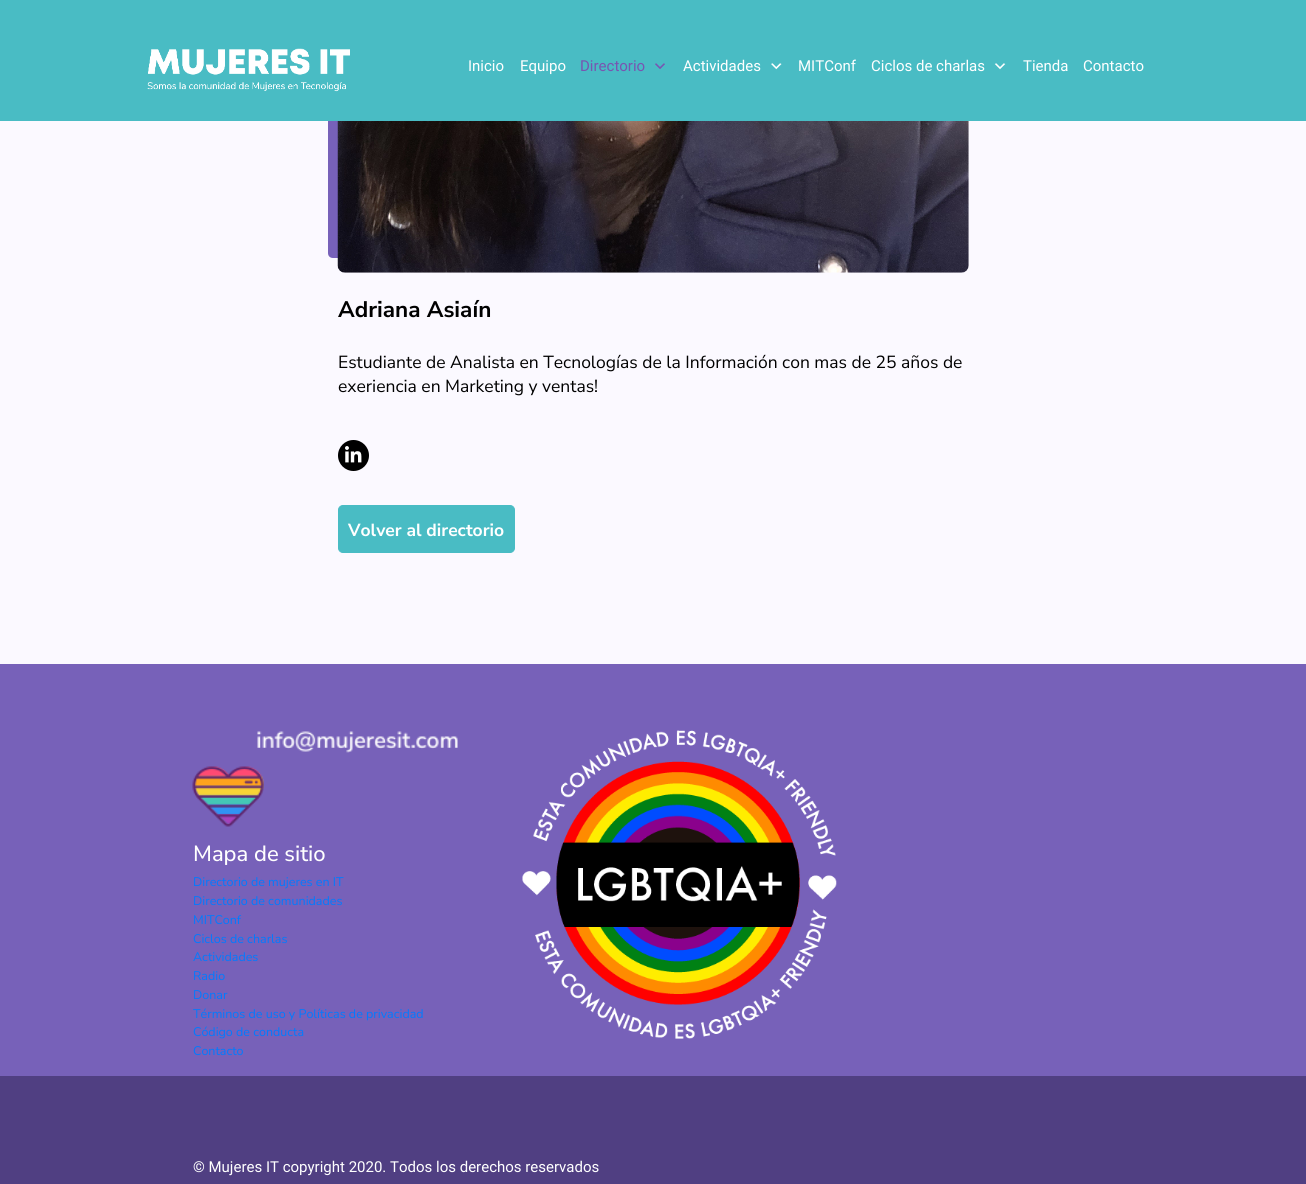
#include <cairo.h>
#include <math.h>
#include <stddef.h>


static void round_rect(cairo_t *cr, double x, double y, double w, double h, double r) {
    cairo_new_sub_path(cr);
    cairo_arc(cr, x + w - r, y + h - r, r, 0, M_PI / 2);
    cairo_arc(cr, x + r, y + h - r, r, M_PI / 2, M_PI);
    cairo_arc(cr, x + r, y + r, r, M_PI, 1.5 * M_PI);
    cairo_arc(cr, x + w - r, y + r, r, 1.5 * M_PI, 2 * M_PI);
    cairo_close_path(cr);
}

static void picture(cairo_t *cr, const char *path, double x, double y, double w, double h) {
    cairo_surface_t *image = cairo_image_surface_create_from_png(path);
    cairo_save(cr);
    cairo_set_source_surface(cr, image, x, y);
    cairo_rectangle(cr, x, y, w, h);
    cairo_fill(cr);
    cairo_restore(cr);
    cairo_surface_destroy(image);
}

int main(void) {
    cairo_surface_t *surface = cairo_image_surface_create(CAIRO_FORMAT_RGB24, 1306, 1184);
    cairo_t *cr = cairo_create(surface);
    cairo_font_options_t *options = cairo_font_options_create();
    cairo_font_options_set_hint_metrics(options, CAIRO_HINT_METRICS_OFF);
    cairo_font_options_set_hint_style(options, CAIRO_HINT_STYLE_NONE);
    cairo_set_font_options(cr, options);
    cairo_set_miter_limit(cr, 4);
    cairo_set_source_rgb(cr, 0.984, 0.976, 1);
    cairo_paint(cr);
    cairo_set_source_rgb(cr, 0.467, 0.38, 0.725);
    cairo_new_path(cr);
    cairo_move_to(cr, 333, -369);
    cairo_curve_to(cr, 330, -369, 328, -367, 328, -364);
    cairo_line_to(cr, 328, 253);
    cairo_curve_to(cr, 328, 256, 330, 258, 333, 258);
    cairo_line_to(cr, 338, 258);
    cairo_line_to(cr, 338, -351);
    cairo_curve_to(cr, 338, -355, 341, -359, 345, -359);
    cairo_line_to(cr, 954, -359);
    cairo_curve_to(cr, 954, -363, 955, -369, 949, -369);
    cairo_close_path(cr);
    cairo_fill(cr);
    cairo_set_source_rgb(cr, 0.286, 0.737, 0.769);
    cairo_rectangle(cr, 0, 0, 1306, 121);
    cairo_fill(cr);
    picture(cr, "img1.png", 147, 48, 203, 44);
    cairo_select_font_face(cr, "Roboto", CAIRO_FONT_SLANT_NORMAL, CAIRO_FONT_WEIGHT_NORMAL);
    cairo_set_font_size(cr, 15);
    cairo_set_source_rgb(cr, 1, 1, 1);
    cairo_move_to(cr, 468, 71);
    cairo_show_text(cr, "Inicio");
    cairo_move_to(cr, 520, 71);
    cairo_show_text(cr, "Equipo");
    cairo_set_source_rgb(cr, 0.471, 0.333, 0.694);
    cairo_move_to(cr, 580, 71);
    cairo_show_text(cr, "Directorio");
    picture(cr, "img2.png", 655, 63, 10, 6);
    cairo_set_source_rgb(cr, 1, 1, 1);
    cairo_move_to(cr, 683, 71);
    cairo_show_text(cr, "Actividades");
    picture(cr, "img3.png", 771, 63, 11, 7);
    cairo_move_to(cr, 798, 71);
    cairo_show_text(cr, "MITConf");
    cairo_move_to(cr, 871, 71);
    cairo_show_text(cr, "Ciclos de charlas");
    picture(cr, "img4.png", 994, 63, 12, 7);
    cairo_move_to(cr, 1023, 71);
    cairo_show_text(cr, "Tienda");
    cairo_move_to(cr, 1083, 71);
    cairo_show_text(cr, "Contacto");
    picture(cr, "img5.png", 337, 121, 632, 152);
    cairo_select_font_face(cr, "Nunito Sans", CAIRO_FONT_SLANT_NORMAL, CAIRO_FONT_WEIGHT_BOLD);
    cairo_set_font_size(cr, 22.5);
    cairo_set_source_rgb(cr, 0, 0, 0);
    cairo_move_to(cr, 338, 317);
    cairo_show_text(cr, "Adriana Asiaín");
    cairo_select_font_face(cr, "Nunito Sans", CAIRO_FONT_SLANT_NORMAL, CAIRO_FONT_WEIGHT_NORMAL);
    cairo_set_font_size(cr, 17.5);
    cairo_move_to(cr, 338, 368);
    cairo_show_text(cr, "Estudiante de Analista en Tecnologías de la Información con mas de 25 años de");
    cairo_move_to(cr, 338, 392);
    cairo_show_text(cr, "exeriencia en Marketing y ventas!");
    cairo_new_path(cr);
    cairo_arc(cr, 353.5, 455.5, 15.5, 0, 2 * M_PI);
    cairo_fill(cr);
    picture(cr, "img6.png", 345, 446, 17, 17);
    cairo_set_source_rgb(cr, 0.286, 0.737, 0.769);
    round_rect(cr, 338.5, 505.5, 176, 47, 4.5);
    cairo_fill_preserve(cr);
    cairo_set_line_width(cr, 1);
    cairo_stroke(cr);
    cairo_select_font_face(cr, "Nunito Sans", CAIRO_FONT_SLANT_NORMAL, CAIRO_FONT_WEIGHT_BOLD);
    cairo_set_source_rgb(cr, 1, 1, 1);
    cairo_move_to(cr, 348, 536);
    cairo_show_text(cr, "Volver al directorio");
    cairo_set_source_rgb(cr, 0.467, 0.38, 0.725);
    cairo_rectangle(cr, 0, 664, 1306, 412);
    cairo_fill(cr);
    picture(cr, "img7.png", 257, 731, 201, 22);
    picture(cr, "img8.png", 522, 730, 315, 309);
    picture(cr, "img9.png", 192, 766, 72, 61);
    cairo_select_font_face(cr, "Nunito Sans Medium", CAIRO_FONT_SLANT_NORMAL, CAIRO_FONT_WEIGHT_NORMAL);
    cairo_set_font_size(cr, 22);
    cairo_set_source_rgb(cr, 1, 1, 1);
    cairo_move_to(cr, 193, 861);
    cairo_show_text(cr, "Mapa de sitio");
    cairo_select_font_face(cr, "Nunito Sans", CAIRO_FONT_SLANT_NORMAL, CAIRO_FONT_WEIGHT_NORMAL);
    cairo_set_font_size(cr, 12.5);
    cairo_set_source_rgb(cr, 0, 0.482, 1);
    cairo_move_to(cr, 193, 886);
    cairo_show_text(cr, "Directorio de mujeres en IT");
    cairo_move_to(cr, 193, 905);
    cairo_show_text(cr, "Directorio de comunidades");
    cairo_move_to(cr, 193, 924);
    cairo_show_text(cr, "MITConf");
    cairo_move_to(cr, 193, 943);
    cairo_show_text(cr, "Ciclos de charlas");
    cairo_move_to(cr, 193, 961);
    cairo_show_text(cr, "Actividades");
    cairo_move_to(cr, 193, 980);
    cairo_show_text(cr, "Radio");
    cairo_move_to(cr, 193, 999);
    cairo_show_text(cr, "Donar");
    cairo_move_to(cr, 193, 1018);
    cairo_show_text(cr, "Términos de uso y Políticas de privacidad");
    cairo_move_to(cr, 193, 1036);
    cairo_show_text(cr, "Código de conducta");
    cairo_move_to(cr, 193, 1055);
    cairo_show_text(cr, "Contacto");
    cairo_set_source_rgb(cr, 0.314, 0.247, 0.51);
    cairo_rectangle(cr, 0, 1076, 1306, 108);
    cairo_fill(cr);
    cairo_select_font_face(cr, "Roboto", CAIRO_FONT_SLANT_NORMAL, CAIRO_FONT_WEIGHT_NORMAL);
    cairo_set_font_size(cr, 15);
    cairo_set_source_rgb(cr, 1, 1, 1);
    cairo_move_to(cr, 193, 1172);
    cairo_show_text(cr, "© Mujeres IT copyright 2020. Todos los derechos reservados");
    cairo_surface_write_to_png(surface, "page.png");
    cairo_font_options_destroy(options);
    cairo_destroy(cr);
    cairo_surface_destroy(surface);
    return 0;
}
